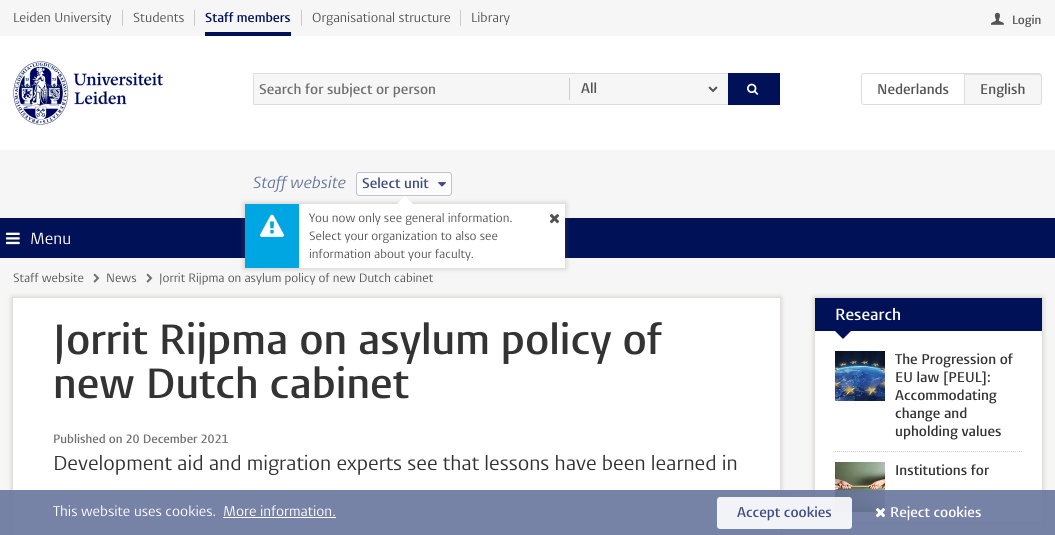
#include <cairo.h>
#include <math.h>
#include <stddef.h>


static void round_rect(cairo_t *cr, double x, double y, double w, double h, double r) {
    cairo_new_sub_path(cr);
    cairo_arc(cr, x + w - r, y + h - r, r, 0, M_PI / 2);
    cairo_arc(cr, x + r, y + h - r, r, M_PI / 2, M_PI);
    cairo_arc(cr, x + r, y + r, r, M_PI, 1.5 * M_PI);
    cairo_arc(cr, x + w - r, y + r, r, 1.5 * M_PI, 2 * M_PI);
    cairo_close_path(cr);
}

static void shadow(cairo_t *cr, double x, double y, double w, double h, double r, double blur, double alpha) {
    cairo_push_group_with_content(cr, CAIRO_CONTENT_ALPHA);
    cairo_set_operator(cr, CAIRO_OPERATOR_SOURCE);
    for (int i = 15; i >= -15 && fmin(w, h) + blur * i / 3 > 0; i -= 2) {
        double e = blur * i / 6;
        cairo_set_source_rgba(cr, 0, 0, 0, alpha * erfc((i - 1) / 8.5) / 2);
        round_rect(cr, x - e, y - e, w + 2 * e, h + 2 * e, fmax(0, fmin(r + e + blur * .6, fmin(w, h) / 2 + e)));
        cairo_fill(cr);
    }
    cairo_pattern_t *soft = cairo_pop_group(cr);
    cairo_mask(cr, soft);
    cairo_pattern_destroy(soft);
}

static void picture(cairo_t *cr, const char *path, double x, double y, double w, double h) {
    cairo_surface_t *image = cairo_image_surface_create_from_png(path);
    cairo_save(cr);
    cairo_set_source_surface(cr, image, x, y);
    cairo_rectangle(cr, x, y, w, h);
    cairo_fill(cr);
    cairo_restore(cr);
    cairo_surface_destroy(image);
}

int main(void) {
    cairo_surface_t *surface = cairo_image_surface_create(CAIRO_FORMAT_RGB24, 1055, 535);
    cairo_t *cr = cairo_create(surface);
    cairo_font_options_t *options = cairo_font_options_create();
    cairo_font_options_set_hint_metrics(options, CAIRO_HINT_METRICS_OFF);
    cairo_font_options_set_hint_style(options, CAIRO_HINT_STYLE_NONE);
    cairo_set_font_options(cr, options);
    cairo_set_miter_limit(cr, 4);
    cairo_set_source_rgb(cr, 0.961, 0.961, 0.961);
    cairo_paint(cr);
    cairo_set_source_rgb(cr, 1, 1, 1);
    cairo_rectangle(cr, 0, 36, 1055, 114);
    cairo_fill(cr);
    cairo_set_source_rgb(cr, 0.8, 0.8, 0.8);
    cairo_rectangle(cr, 122, 10, 1, 16);
    cairo_fill(cr);
    cairo_select_font_face(cr, "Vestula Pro", CAIRO_FONT_SLANT_NORMAL, CAIRO_FONT_WEIGHT_NORMAL);
    cairo_set_font_size(cr, 13);
    cairo_set_source_rgb(cr, 0.325, 0.325, 0.325);
    cairo_move_to(cr, 13, 22);
    cairo_show_text(cr, "Leiden University");
    cairo_set_source_rgb(cr, 0.8, 0.8, 0.8);
    cairo_rectangle(cr, 194, 10, 1, 16);
    cairo_fill(cr);
    cairo_set_source_rgb(cr, 0.325, 0.325, 0.325);
    cairo_move_to(cr, 133, 22);
    cairo_show_text(cr, "Students");
    cairo_set_source_rgb(cr, 0.8, 0.8, 0.8);
    cairo_rectangle(cr, 301, 10, 1, 16);
    cairo_fill(cr);
    cairo_select_font_face(cr, "Vestula Pro SemiBold", CAIRO_FONT_SLANT_NORMAL, CAIRO_FONT_WEIGHT_NORMAL);
    cairo_set_source_rgb(cr, 0, 0.067, 0.345);
    cairo_move_to(cr, 205, 22);
    cairo_show_text(cr, "Staff members");
    cairo_rectangle(cr, 205, 32, 86, 4);
    cairo_fill(cr);
    cairo_set_source_rgb(cr, 0.8, 0.8, 0.8);
    cairo_rectangle(cr, 460, 10, 1, 16);
    cairo_fill(cr);
    cairo_select_font_face(cr, "Vestula Pro", CAIRO_FONT_SLANT_NORMAL, CAIRO_FONT_WEIGHT_NORMAL);
    cairo_set_source_rgb(cr, 0.325, 0.325, 0.325);
    cairo_move_to(cr, 312, 22);
    cairo_show_text(cr, "Organisational structure");
    cairo_move_to(cr, 471, 22);
    cairo_show_text(cr, "Library");
    picture(cr, "img1.png", 991, 12, 13, 13);
    cairo_select_font_face(cr, "Vestula Pro SemiBold", CAIRO_FONT_SLANT_NORMAL, CAIRO_FONT_WEIGHT_NORMAL);
    cairo_set_font_size(cr, 12);
    cairo_move_to(cr, 1012, 24);
    cairo_show_text(cr, "Login");
    picture(cr, "img2.png", 13, 61, 150, 64);
    cairo_set_source_rgb(cr, 0.961, 0.961, 0.961);
    cairo_rectangle(cr, 254, 74, 474, 30);
    cairo_fill(cr);
    cairo_set_source_rgb(cr, 0.867, 0.867, 0.867);
    cairo_rectangle(cr, 253, 73, 475, 1);
    cairo_fill(cr);
    cairo_rectangle(cr, 253, 104, 475, 1);
    cairo_fill(cr);
    cairo_rectangle(cr, 253, 73, 1, 32);
    cairo_fill(cr);
    cairo_set_font_size(cr, 14);
    cairo_set_source_rgb(cr, 0.439, 0.439, 0.439);
    cairo_move_to(cr, 259, 94);
    cairo_show_text(cr, "Search for subject or person");
    cairo_set_source_rgb(cr, 0.8, 0.8, 0.8);
    cairo_rectangle(cr, 569, 78, 1, 22);
    cairo_fill(cr);
    cairo_set_source_rgb(cr, 0.325, 0.325, 0.325);
    cairo_move_to(cr, 581, 93);
    cairo_show_text(cr, "All");
    picture(cr, "img3.png", 708, 86, 10, 7);
    cairo_set_source_rgb(cr, 0, 0.067, 0.345);
    cairo_rectangle(cr, 728, 73, 52, 32);
    cairo_fill(cr);
    picture(cr, "img4.png", 747, 83, 12, 12);
    cairo_new_path(cr);
    cairo_move_to(cr, 864, 73.5);
    cairo_line_to(cr, 964.5, 73.5);
    cairo_line_to(cr, 964.5, 104.5);
    cairo_line_to(cr, 864, 104.5);
    cairo_curve_to(cr, 862.5, 104.5, 861.5, 103.5, 861.5, 102);
    cairo_line_to(cr, 861.5, 76);
    cairo_curve_to(cr, 861.5, 74.5, 862.5, 73.5, 864, 73.5);
    cairo_close_path(cr);
    cairo_set_source_rgb(cr, 0.867, 0.867, 0.867);
    cairo_set_line_width(cr, 1);
    cairo_stroke(cr);
    cairo_set_source_rgb(cr, 0.325, 0.325, 0.325);
    cairo_move_to(cr, 877, 94);
    cairo_show_text(cr, "Nederlands");
    cairo_set_source_rgb(cr, 0.961, 0.961, 0.961);
    cairo_new_path(cr);
    cairo_move_to(cr, 964, 73);
    cairo_line_to(cr, 1039, 73);
    cairo_curve_to(cr, 1040.5, 73, 1042, 74.5, 1042, 76);
    cairo_line_to(cr, 1042, 102);
    cairo_curve_to(cr, 1042, 103.5, 1040.5, 105, 1039, 105);
    cairo_line_to(cr, 964, 105);
    cairo_close_path(cr);
    cairo_fill(cr);
    cairo_set_source_rgb(cr, 0.882, 0.882, 0.882);
    cairo_new_path(cr);
    cairo_move_to(cr, 965, 75);
    cairo_line_to(cr, 1039, 75);
    cairo_curve_to(cr, 1040, 75, 1041, 76, 1041, 77);
    cairo_line_to(cr, 1041, 76);
    cairo_curve_to(cr, 1041, 75, 1040, 74, 1039, 74);
    cairo_line_to(cr, 965, 74);
    cairo_close_path(cr);
    cairo_fill(cr);
    cairo_new_path(cr);
    cairo_move_to(cr, 964.5, 73.5);
    cairo_line_to(cr, 1039, 73.5);
    cairo_curve_to(cr, 1040.5, 73.5, 1041.5, 74.5, 1041.5, 76);
    cairo_line_to(cr, 1041.5, 102);
    cairo_curve_to(cr, 1041.5, 103.5, 1040.5, 104.5, 1039, 104.5);
    cairo_line_to(cr, 964.5, 104.5);
    cairo_close_path(cr);
    cairo_set_source_rgb(cr, 0.867, 0.867, 0.867);
    cairo_stroke(cr);
    cairo_set_source_rgb(cr, 0.325, 0.325, 0.325);
    cairo_move_to(cr, 980, 94);
    cairo_show_text(cr, "English");
    cairo_set_source_rgb(cr, 0, 0.067, 0.345);
    cairo_rectangle(cr, 0, 218, 1055, 40);
    cairo_fill(cr);
    picture(cr, "img5.png", 6, 232, 14, 13);
    cairo_select_font_face(cr, "Vestula Pro", CAIRO_FONT_SLANT_NORMAL, CAIRO_FONT_WEIGHT_NORMAL);
    cairo_set_font_size(cr, 16);
    cairo_set_source_rgb(cr, 1, 1, 1);
    cairo_move_to(cr, 30, 244);
    cairo_show_text(cr, "Menu");
    cairo_select_font_face(cr, "Vestula Pro", CAIRO_FONT_SLANT_ITALIC, CAIRO_FONT_WEIGHT_NORMAL);
    cairo_set_source_rgb(cr, 0.408, 0.463, 0.612);
    cairo_move_to(cr, 253, 188);
    cairo_show_text(cr, "Staff website");
    cairo_set_source_rgb(cr, 0.988, 0.988, 0.988);
    round_rect(cr, 356.5, 172.5, 95, 23, 2.5);
    cairo_fill_preserve(cr);
    cairo_set_source_rgb(cr, 0.749, 0.765, 0.835);
    cairo_stroke(cr);
    cairo_select_font_face(cr, "Vestula Pro SemiBold", CAIRO_FONT_SLANT_NORMAL, CAIRO_FONT_WEIGHT_NORMAL);
    cairo_set_font_size(cr, 14);
    cairo_set_source_rgb(cr, 0.251, 0.302, 0.51);
    cairo_move_to(cr, 362, 188);
    cairo_show_text(cr, "Select unit");
    picture(cr, "img6.png", 438, 182, 8, 5);
    cairo_set_source_rgb(cr, 0.471, 0.431, 0.392);
    shadow(cr, 244, 203, 322, 66, 0, 2.5, 0.3);
    cairo_set_source_rgb(cr, 1, 1, 1);
    cairo_rectangle(cr, 299, 204, 266, 64);
    cairo_fill(cr);
    cairo_new_path(cr);
    cairo_move_to(cr, 413, 204);
    cairo_line_to(cr, 397, 204);
    cairo_line_to(cr, 405, 196);
    cairo_close_path(cr);
    cairo_fill(cr);
    cairo_set_source_rgb(cr, 0, 0.651, 0.886);
    cairo_rectangle(cr, 245, 204, 54, 64);
    cairo_fill(cr);
    picture(cr, "img7.png", 260, 214, 24, 23);
    cairo_select_font_face(cr, "Vestula Pro", CAIRO_FONT_SLANT_NORMAL, CAIRO_FONT_WEIGHT_NORMAL);
    cairo_set_font_size(cr, 12);
    cairo_set_source_rgb(cr, 0.325, 0.325, 0.325);
    cairo_move_to(cr, 309, 222);
    cairo_show_text(cr, "You now only see general information.");
    picture(cr, "img8.png", 549, 214, 11, 10);
    cairo_move_to(cr, 309, 240);
    cairo_show_text(cr, "Select your organization to also see");
    cairo_move_to(cr, 309, 258);
    cairo_show_text(cr, "information about your faculty.");
    cairo_move_to(cr, 13, 282);
    cairo_show_text(cr, "Staff website");
    picture(cr, "img9.png", 93, 273, 7, 10);
    cairo_move_to(cr, 106, 282);
    cairo_show_text(cr, "News");
    picture(cr, "img9.png", 146, 273, 7, 10);
    cairo_move_to(cr, 159, 282);
    cairo_show_text(cr, "Jorrit Rijpma on asylum policy of new Dutch cabinet");
    cairo_set_source_rgb(cr, 0.471, 0.431, 0.392);
    shadow(cr, 12, 297, 769, 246, 0, 2.5, 0.3);
    cairo_set_source_rgb(cr, 1, 1, 1);
    cairo_rectangle(cr, 13, 298, 767, 237);
    cairo_fill(cr);
    cairo_select_font_face(cr, "Vestula Pro SemiBold", CAIRO_FONT_SLANT_NORMAL, CAIRO_FONT_WEIGHT_NORMAL);
    cairo_set_font_size(cr, 42);
    cairo_set_source_rgb(cr, 0.2, 0.2, 0.2);
    cairo_move_to(cr, 53, 354);
    cairo_show_text(cr, "Jorrit Rijpma on asylum policy of");
    cairo_move_to(cr, 53, 398);
    cairo_show_text(cr, "new Dutch cabinet");
    cairo_set_font_size(cr, 12);
    cairo_set_source_rgb(cr, 0.439, 0.439, 0.439);
    cairo_move_to(cr, 53, 443);
    cairo_show_text(cr, "Published on 20 December 2021");
    cairo_select_font_face(cr, "Vestula Pro", CAIRO_FONT_SLANT_NORMAL, CAIRO_FONT_WEIGHT_NORMAL);
    cairo_set_font_size(cr, 20);
    cairo_set_source_rgb(cr, 0.2, 0.2, 0.2);
    cairo_move_to(cr, 53, 470);
    cairo_show_text(cr, "Development aid and migration experts see that lessons have been learned in");
    cairo_set_source_rgb(cr, 0.471, 0.431, 0.392);
    shadow(cr, 814, 297, 229, 226, 0, 2.5, 0.3);
    cairo_set_source_rgb(cr, 1, 1, 1);
    cairo_rectangle(cr, 815, 331, 227, 191);
    cairo_fill(cr);
    cairo_set_source_rgb(cr, 0, 0.067, 0.345);
    cairo_rectangle(cr, 815, 298, 227, 33);
    cairo_fill(cr);
    cairo_select_font_face(cr, "Vestula Pro SemiBold", CAIRO_FONT_SLANT_NORMAL, CAIRO_FONT_WEIGHT_NORMAL);
    cairo_set_font_size(cr, 16);
    cairo_set_source_rgb(cr, 1, 1, 1);
    cairo_move_to(cr, 835, 320);
    cairo_show_text(cr, "Research");
    cairo_set_source_rgb(cr, 0, 0.067, 0.345);
    cairo_new_path(cr);
    cairo_move_to(cr, 835, 331);
    cairo_line_to(cr, 851, 331);
    cairo_line_to(cr, 843, 339);
    cairo_close_path(cr);
    cairo_fill(cr);
    picture(cr, "img10.png", 835, 351, 50, 50);
    cairo_set_font_size(cr, 14);
    cairo_set_source_rgb(cr, 0.2, 0.2, 0.2);
    cairo_move_to(cr, 895, 364);
    cairo_show_text(cr, "The Progression of");
    cairo_move_to(cr, 895, 382);
    cairo_show_text(cr, "EU law [PEUL]:");
    cairo_move_to(cr, 895, 400);
    cairo_show_text(cr, "Accommodating");
    cairo_move_to(cr, 895, 418);
    cairo_show_text(cr, "change and");
    cairo_move_to(cr, 895, 436);
    cairo_show_text(cr, "upholding values");
    cairo_new_path(cr);
    cairo_move_to(cr, 835, 451.5);
    cairo_line_to(cr, 1022, 451.5);
    cairo_set_source_rgb(cr, 0.8, 0.8, 0.8);
    cairo_set_dash(cr, (double[]){1, 1}, 2, 0);
    cairo_stroke(cr);
    picture(cr, "img11.png", 835, 462, 50, 50);
    cairo_set_source_rgb(cr, 0.2, 0.2, 0.2);
    cairo_move_to(cr, 895, 475);
    cairo_show_text(cr, "Institutions for");
    cairo_set_source_rgba(cr, 0.408, 0.463, 0.612, 0.9);
    cairo_rectangle(cr, 0, 490, 1055, 45);
    cairo_fill(cr);
    cairo_select_font_face(cr, "Vestula Pro", CAIRO_FONT_SLANT_NORMAL, CAIRO_FONT_WEIGHT_NORMAL);
    cairo_set_source_rgb(cr, 1, 1, 1);
    cairo_move_to(cr, 53, 516);
    cairo_show_text(cr, "This website uses cookies.");
    cairo_move_to(cr, 223, 516);
    cairo_show_text(cr, "More information.");
    cairo_rectangle(cr, 223, 517, 113, 1);
    cairo_fill(cr);
    cairo_set_source_rgba(cr, 1, 1, 1, 0.9);
    round_rect(cr, 717, 497, 135, 32, 3);
    cairo_fill(cr);
    cairo_select_font_face(cr, "Vestula Pro SemiBold", CAIRO_FONT_SLANT_NORMAL, CAIRO_FONT_WEIGHT_NORMAL);
    cairo_set_source_rgb(cr, 0.251, 0.302, 0.51);
    cairo_move_to(cr, 737, 517);
    cairo_show_text(cr, "Accept cookies");
    picture(cr, "img12.png", 875, 508, 11, 10);
    cairo_set_source_rgb(cr, 1, 1, 1);
    cairo_move_to(cr, 890, 517);
    cairo_show_text(cr, "Reject cookies");
    cairo_surface_write_to_png(surface, "page.png");
    cairo_font_options_destroy(options);
    cairo_destroy(cr);
    cairo_surface_destroy(surface);
    return 0;
}
